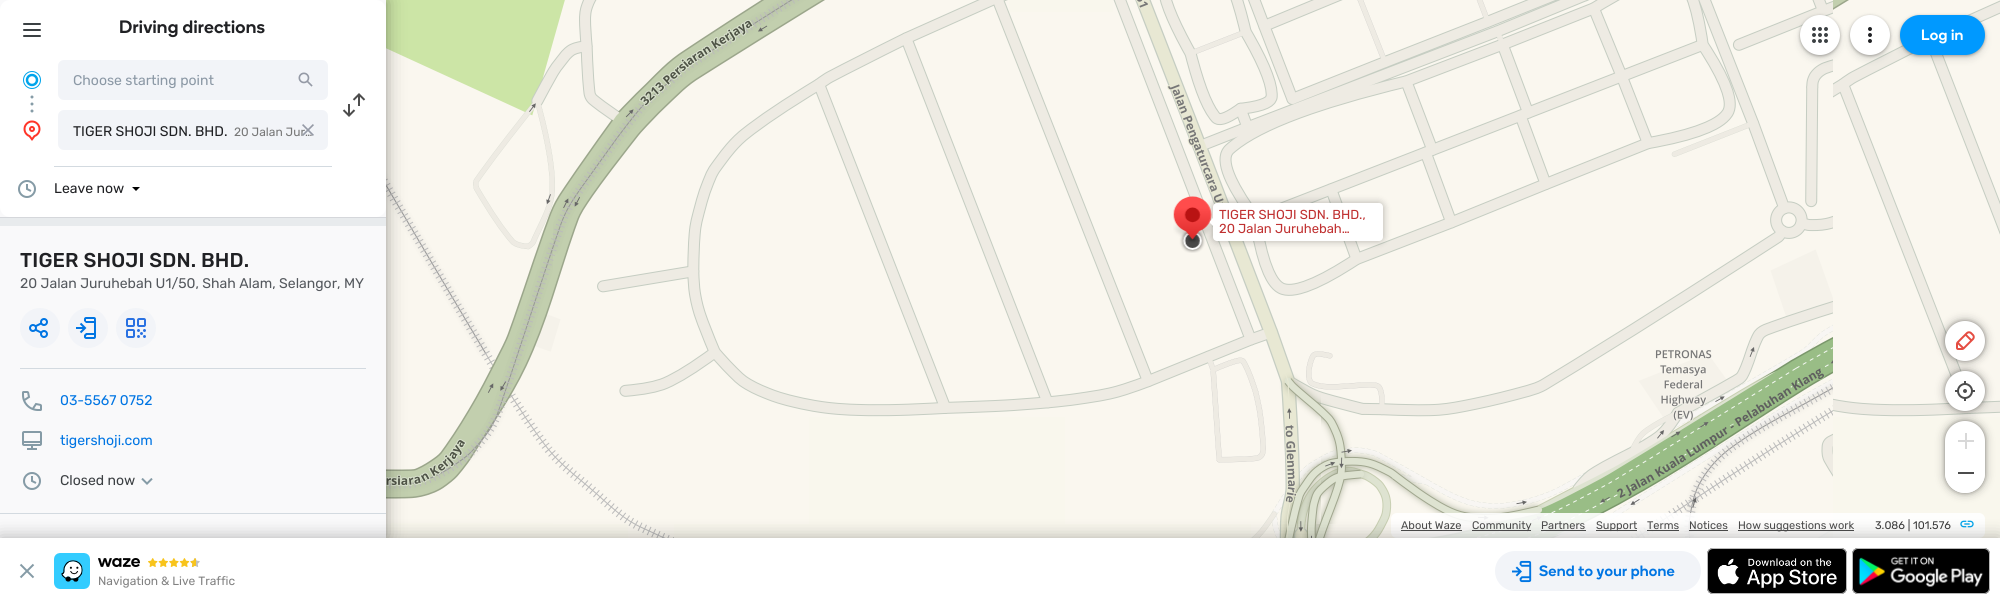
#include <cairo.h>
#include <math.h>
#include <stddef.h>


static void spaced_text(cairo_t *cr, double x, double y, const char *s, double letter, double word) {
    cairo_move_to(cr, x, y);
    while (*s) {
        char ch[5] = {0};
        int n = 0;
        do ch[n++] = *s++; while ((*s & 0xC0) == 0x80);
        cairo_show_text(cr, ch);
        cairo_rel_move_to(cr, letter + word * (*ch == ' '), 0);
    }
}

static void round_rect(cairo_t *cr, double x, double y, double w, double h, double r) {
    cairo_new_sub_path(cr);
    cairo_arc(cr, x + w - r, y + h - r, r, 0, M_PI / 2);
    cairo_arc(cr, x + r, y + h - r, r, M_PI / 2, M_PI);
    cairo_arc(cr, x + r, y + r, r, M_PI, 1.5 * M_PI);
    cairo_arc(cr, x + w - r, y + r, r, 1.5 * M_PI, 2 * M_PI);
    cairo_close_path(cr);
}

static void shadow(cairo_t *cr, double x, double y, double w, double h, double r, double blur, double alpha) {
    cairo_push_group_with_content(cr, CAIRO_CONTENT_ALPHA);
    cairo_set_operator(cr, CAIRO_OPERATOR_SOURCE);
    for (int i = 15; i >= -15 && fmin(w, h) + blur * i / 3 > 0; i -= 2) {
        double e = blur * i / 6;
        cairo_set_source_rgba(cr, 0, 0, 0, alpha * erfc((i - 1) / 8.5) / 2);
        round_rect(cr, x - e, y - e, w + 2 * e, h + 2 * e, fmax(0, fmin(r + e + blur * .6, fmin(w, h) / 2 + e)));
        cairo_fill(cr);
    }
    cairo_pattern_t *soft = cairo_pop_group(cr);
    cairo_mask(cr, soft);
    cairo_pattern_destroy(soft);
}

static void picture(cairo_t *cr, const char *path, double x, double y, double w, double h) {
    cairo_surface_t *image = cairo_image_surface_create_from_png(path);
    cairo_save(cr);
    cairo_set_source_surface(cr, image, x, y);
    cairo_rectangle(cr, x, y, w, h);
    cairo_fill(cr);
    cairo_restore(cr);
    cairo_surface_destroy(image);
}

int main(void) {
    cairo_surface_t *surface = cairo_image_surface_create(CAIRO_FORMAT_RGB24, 2000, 604);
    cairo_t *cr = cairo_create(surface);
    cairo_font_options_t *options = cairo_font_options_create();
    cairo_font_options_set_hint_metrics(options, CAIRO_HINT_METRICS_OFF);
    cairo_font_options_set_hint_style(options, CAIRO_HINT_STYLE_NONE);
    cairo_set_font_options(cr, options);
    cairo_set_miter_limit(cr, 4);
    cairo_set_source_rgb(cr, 0.976, 0.965, 0.929);
    cairo_paint(cr);
    picture(cr, "img15.png", 386, 0, 167, 12);
    picture(cr, "img22.png", 386, 12, 167, 256);
    picture(cr, "img29.png", 386, 268, 167, 255);
    cairo_set_source_rgb(cr, 0, 0, 0);
    shadow(cr, 0, 2, 386, 538, 0, 4, 0.12);
    shadow(cr, 0, 0, 386, 538, 0, 10, 0.3);
    cairo_set_source_rgb(cr, 0.973, 0.976, 0.98);
    cairo_rectangle(cr, 0, 0, 386, 513);
    cairo_fill(cr);
    cairo_set_source_rgb(cr, 1, 1, 1);
    cairo_new_path(cr);
    cairo_move_to(cr, 10, 0);
    cairo_line_to(cr, 376, 0);
    cairo_curve_to(cr, 381.5, 0, 386, 4.5, 386, 10);
    cairo_line_to(cr, 386, 60);
    cairo_line_to(cr, 0, 60);
    cairo_line_to(cr, 0, 10);
    cairo_curve_to(cr, 0, 4.5, 4.5, 0, 10, 0);
    cairo_close_path(cr);
    cairo_fill(cr);
    picture(cr, "img1.png", 23, 23, 18, 14);
    cairo_select_font_face(cr, "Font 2 Medium", CAIRO_FONT_SLANT_NORMAL, CAIRO_FONT_WEIGHT_NORMAL);
    cairo_set_font_size(cr, 18);
    cairo_set_source_rgb(cr, 0.125, 0.129, 0.141);
    spaced_text(cr, 119, 33, "Driving directions", 0.25, 0);
    cairo_set_source_rgb(cr, 1, 1, 1);
    cairo_rectangle(cr, 0, 60, 386, 106);
    cairo_fill(cr);
    cairo_set_source_rgb(cr, 0.525, 0.612, 0.655);
    cairo_arc(cr, 32, 97, 1.5, 0, 2 * M_PI);
    cairo_fill(cr);
    cairo_arc(cr, 32, 104, 1.5, 0, 2 * M_PI);
    cairo_fill(cr);
    cairo_arc(cr, 32, 111, 1.5, 0, 2 * M_PI);
    cairo_fill(cr);
    picture(cr, "img2.png", 23, 71, 18, 18);
    cairo_set_source_rgb(cr, 0.949, 0.957, 0.969);
    round_rect(cr, 58, 60, 270, 40, 6);
    cairo_fill(cr);
    cairo_select_font_face(cr, "Rubik", CAIRO_FONT_SLANT_NORMAL, CAIRO_FONT_WEIGHT_NORMAL);
    cairo_set_font_size(cr, 14);
    cairo_set_source_rgb(cr, 0.545, 0.596, 0.647);
    cairo_move_to(cr, 73, 85);
    cairo_show_text(cr, "Choose starting point");
    picture(cr, "img3.png", 298, 72, 15, 15);
    picture(cr, "img4.png", 342, 93, 24, 24);
    picture(cr, "img5.png", 23, 120, 18, 21);
    cairo_set_source_rgb(cr, 0.949, 0.957, 0.969);
    round_rect(cr, 58, 110, 270, 40, 6);
    cairo_fill(cr);
    cairo_set_font_size(cr, 12);
    cairo_set_source_rgb(cr, 0.467, 0.467, 0.467);
    cairo_move_to(cr, 234, 136);
    cairo_show_text(cr, "20 Jalan Jur…");
    picture(cr, "img6.png", 302, 124, 12, 12);
    cairo_set_font_size(cr, 14);
    cairo_set_source_rgb(cr, 0.125, 0.129, 0.141);
    cairo_move_to(cr, 73, 136);
    cairo_show_text(cr, "TIGER SHOJI SDN. BHD.");
    cairo_set_source_rgb(cr, 1, 1, 1);
    cairo_new_path(cr);
    cairo_move_to(cr, 0, 166);
    cairo_line_to(cr, 386, 166);
    cairo_line_to(cr, 386, 207);
    cairo_curve_to(cr, 386, 212.5, 381.5, 217, 376, 217);
    cairo_line_to(cr, 10, 217);
    cairo_curve_to(cr, 4.5, 217, 0, 212.5, 0, 207);
    cairo_close_path(cr);
    cairo_fill(cr);
    cairo_set_source_rgb(cr, 0.827, 0.855, 0.878);
    cairo_rectangle(cr, 54, 166, 278, 1);
    cairo_fill(cr);
    picture(cr, "img7.png", 18, 180, 18, 18);
    cairo_set_source_rgb(cr, 0.125, 0.129, 0.141);
    cairo_move_to(cr, 54, 193);
    cairo_show_text(cr, "Leave now");
    cairo_set_source_rgb(cr, 0, 0, 0);
    cairo_new_path(cr);
    cairo_move_to(cr, 132, 187);
    cairo_line_to(cr, 140, 187);
    cairo_line_to(cr, 136, 191);
    cairo_close_path(cr);
    cairo_fill(cr);
    cairo_set_source_rgb(cr, 0.835, 0.843, 0.859);
    cairo_rectangle(cr, 0, 217, 386, 1);
    cairo_fill(cr);
    cairo_set_source_rgb(cr, 0.91, 0.918, 0.929);
    cairo_rectangle(cr, 0, 218, 386, 8);
    cairo_fill(cr);
    cairo_set_source_rgb(cr, 0.827, 0.855, 0.878);
    cairo_rectangle(cr, 20, 368, 346, 1);
    cairo_fill(cr);
    cairo_select_font_face(cr, "Rubik Medium", CAIRO_FONT_SLANT_NORMAL, CAIRO_FONT_WEIGHT_NORMAL);
    cairo_set_font_size(cr, 20);
    cairo_set_source_rgb(cr, 0.125, 0.129, 0.141);
    spaced_text(cr, 20, 267, "TIGER SHOJI SDN. BHD.", 0.15, 0);
    cairo_select_font_face(cr, "Rubik", CAIRO_FONT_SLANT_NORMAL, CAIRO_FONT_WEIGHT_NORMAL);
    cairo_set_font_size(cr, 14);
    cairo_set_source_rgb(cr, 0.333, 0.349, 0.369);
    cairo_move_to(cr, 20, 288);
    cairo_show_text(cr, "20 Jalan Juruhebah U1/50, Shah Alam, Selangor, MY");
    cairo_set_source_rgb(cr, 0.949, 0.957, 0.969);
    cairo_new_path(cr);
    cairo_arc(cr, 40, 328, 20, 0, 2 * M_PI);
    cairo_fill(cr);
    picture(cr, "img8.png", 29, 318, 19, 20);
    cairo_arc(cr, 88, 328, 20, 0, 2 * M_PI);
    cairo_fill(cr);
    picture(cr, "img9.png", 76, 317, 20, 22);
    cairo_arc(cr, 136, 328, 20, 0, 2 * M_PI);
    cairo_fill(cr);
    picture(cr, "img10.png", 126, 318, 20, 20);
    picture(cr, "img11.png", 22, 391, 20, 20);
    cairo_set_source_rgb(cr, 0, 0.459, 0.89);
    cairo_move_to(cr, 60, 405);
    cairo_show_text(cr, "03-5567 0752");
    picture(cr, "img12.png", 22, 431, 20, 19);
    cairo_move_to(cr, 60, 445);
    cairo_show_text(cr, "tigershoji.com");
    picture(cr, "img13.png", 23, 472, 18, 18);
    cairo_set_source_rgb(cr, 0.235, 0.251, 0.263);
    cairo_move_to(cr, 60, 485);
    cairo_show_text(cr, "Closed now");
    picture(cr, "img14.png", 141, 478, 12, 7);
    cairo_set_source_rgb(cr, 0.973, 0.976, 0.98);
    cairo_rectangle(cr, 0, 514, 386, 24);
    cairo_fill(cr);
    cairo_set_source_rgb(cr, 0.827, 0.855, 0.878);
    cairo_rectangle(cr, 0, 513, 386, 1);
    cairo_fill(cr);
    picture(cr, "img16.png", 553, 0, 256, 12);
    picture(cr, "img17.png", 809, 0, 200, 12);
    picture(cr, "img18.png", 1113, 0, 208, 12);
    picture(cr, "img19.png", 1321, 0, 256, 12);
    picture(cr, "img20.png", 1577, 0, 256, 12);
    picture(cr, "img21.png", 1833, 0, 167, 12);
    picture(cr, "img23.png", 553, 12, 256, 256);
    picture(cr, "img24.png", 809, 12, 256, 256);
    picture(cr, "img25.png", 1065, 12, 256, 256);
    picture(cr, "img26.png", 1321, 12, 256, 256);
    picture(cr, "img27.png", 1577, 12, 256, 256);
    picture(cr, "img28.png", 1833, 12, 167, 256);
    picture(cr, "img30.png", 553, 268, 256, 256);
    picture(cr, "img31.png", 809, 268, 256, 149);
    picture(cr, "img32.png", 1065, 268, 256, 256);
    picture(cr, "img33.png", 1321, 268, 256, 256);
    picture(cr, "img34.png", 1577, 268, 256, 256);
    picture(cr, "img35.png", 1833, 268, 167, 149);
    picture(cr, "img36.png", 628, 524, 46, 14);
    picture(cr, "img37.png", 1251, 524, 70, 14);
    picture(cr, "img38.png", 1321, 524, 256, 14);
    picture(cr, "img39.png", 1577, 524, 256, 14);
    cairo_set_source_rgb(cr, 0, 0, 0);
    shadow(cr, 1213, 203, 170, 38, 4, 4, 0.3);
    cairo_set_source_rgb(cr, 1, 1, 1);
    cairo_new_path(cr);
    cairo_move_to(cr, 1213, 218);
    cairo_line_to(cr, 1213, 226);
    cairo_line_to(cr, 1209, 222);
    cairo_close_path(cr);
    cairo_fill(cr);
    picture(cr, "img40.png", 1173, 196, 39, 57);
    round_rect(cr, 1213, 203, 170, 38, 4);
    cairo_fill(cr);
    cairo_set_font_size(cr, 13);
    cairo_set_source_rgb(cr, 0.753, 0.192, 0.192);
    cairo_move_to(cr, 1219, 219);
    cairo_show_text(cr, "TIGER SHOJI SDN. BHD.,");
    cairo_move_to(cr, 1219, 233);
    cairo_show_text(cr, "20 Jalan Juruhebah…");
    cairo_set_source_rgb(cr, 0, 0, 0);
    shadow(cr, 1945, 321, 40, 40, 20, 5, 0.3);
    shadow(cr, 1945, 321, 40, 40, 20, 2, 0.3);
    cairo_set_source_rgb(cr, 1, 1, 1);
    cairo_arc(cr, 1965, 341, 20, 0, 2 * M_PI);
    cairo_fill(cr);
    picture(cr, "img41.png", 1956, 331, 19, 19);
    cairo_set_source_rgb(cr, 0, 0, 0);
    shadow(cr, 1945, 371, 40, 40, 20, 5, 0.3);
    shadow(cr, 1945, 371, 40, 40, 20, 2, 0.3);
    cairo_set_source_rgb(cr, 1, 1, 1);
    cairo_arc(cr, 1965, 391, 20, 0, 2 * M_PI);
    cairo_fill(cr);
    picture(cr, "img42.png", 1955, 381, 20, 20);
    cairo_set_source_rgb(cr, 0, 0, 0);
    shadow(cr, 1945, 421, 40, 72, 20, 5, 0.3);
    shadow(cr, 1945, 421, 40, 72, 20, 2, 0.3);
    cairo_set_source_rgb(cr, 1, 1, 1);
    round_rect(cr, 1945, 421, 40, 72, 20);
    cairo_fill(cr);
    picture(cr, "img43.png", 1958, 433, 16, 16);
    cairo_new_path(cr);
    cairo_move_to(cr, 1945, 457);
    cairo_line_to(cr, 1985, 457);
    cairo_line_to(cr, 1985, 473);
    cairo_curve_to(cr, 1985, 484, 1976, 493, 1965, 493);
    cairo_curve_to(cr, 1954, 493, 1945, 484, 1945, 473);
    cairo_close_path(cr);
    cairo_fill(cr);
    cairo_set_source_rgb(cr, 0.298, 0.298, 0.298);
    cairo_rectangle(cr, 1958, 472, 16, 2);
    cairo_fill(cr);
    cairo_set_source_rgba(cr, 1, 1, 1, 0.9);
    round_rect(cr, 1391, 513, 594, 25, 6);
    cairo_fill(cr);
    cairo_set_font_size(cr, 11);
    cairo_set_source_rgb(cr, 0.298, 0.298, 0.298);
    cairo_move_to(cr, 1401, 529);
    cairo_show_text(cr, "About Waze");
    cairo_rectangle(cr, 1401, 530, 61, 1);
    cairo_fill(cr);
    cairo_rectangle(cr, 1472, 530, 59, 1);
    cairo_fill(cr);
    cairo_move_to(cr, 1472, 529);
    cairo_show_text(cr, "Community");
    cairo_move_to(cr, 1541, 529);
    cairo_show_text(cr, "Partners");
    cairo_rectangle(cr, 1541, 530, 45, 1);
    cairo_fill(cr);
    cairo_rectangle(cr, 1596, 530, 41, 1);
    cairo_fill(cr);
    cairo_move_to(cr, 1596, 529);
    cairo_show_text(cr, "Support");
    cairo_move_to(cr, 1647, 529);
    cairo_show_text(cr, "Terms");
    cairo_rectangle(cr, 1647, 530, 32, 1);
    cairo_fill(cr);
    cairo_move_to(cr, 1689, 529);
    cairo_show_text(cr, "Notices");
    cairo_rectangle(cr, 1689, 530, 39, 1);
    cairo_fill(cr);
    cairo_rectangle(cr, 1738, 530, 116, 1);
    cairo_fill(cr);
    cairo_move_to(cr, 1738, 529);
    cairo_show_text(cr, "How suggestions work");
    cairo_set_source_rgb(cr, 0.239, 0.239, 0.239);
    cairo_move_to(cr, 1875, 529);
    cairo_show_text(cr, "3.086 | 101.576");
    picture(cr, "img44.png", 1960, 520, 14, 8);
    cairo_set_source_rgb(cr, 0.235, 0.251, 0.263);
    shadow(cr, 1800, 19, 40, 40, 20, 4, 0.15);
    cairo_set_source_rgb(cr, 0, 0, 0);
    shadow(cr, 1800, 16, 40, 40, 20, 1.5, 0.3);
    cairo_set_source_rgb(cr, 1, 1, 1);
    cairo_arc(cr, 1820, 35, 19, 0, 2 * M_PI);
    cairo_fill_preserve(cr);
    cairo_stroke(cr);
    picture(cr, "img45.png", 1812, 27, 16, 16);
    cairo_set_source_rgb(cr, 0.235, 0.251, 0.263);
    shadow(cr, 1850, 19, 40, 40, 20, 4, 0.15);
    cairo_set_source_rgb(cr, 0, 0, 0);
    shadow(cr, 1850, 16, 40, 40, 20, 1.5, 0.3);
    cairo_set_source_rgb(cr, 1, 1, 1);
    cairo_arc(cr, 1870, 35, 19, 0, 2 * M_PI);
    cairo_fill_preserve(cr);
    cairo_stroke(cr);
    picture(cr, "img46.png", 1868, 27, 4, 16);
    cairo_set_source_rgb(cr, 0.235, 0.251, 0.263);
    shadow(cr, 1900, 19, 85, 40, 20, 4, 0.15);
    cairo_set_source_rgb(cr, 0, 0, 0);
    shadow(cr, 1900, 16, 85, 40, 20, 1.5, 0.3);
    cairo_set_source_rgb(cr, 0, 0.6, 1);
    round_rect(cr, 1900, 15, 85, 40, 20);
    cairo_fill(cr);
    cairo_select_font_face(cr, "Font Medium", CAIRO_FONT_SLANT_NORMAL, CAIRO_FONT_WEIGHT_NORMAL);
    cairo_set_font_size(cr, 15);
    cairo_set_source_rgb(cr, 1, 1, 1);
    spaced_text(cr, 1921, 40, "Log in", 0.25, 0);
    cairo_set_source_rgb(cr, 0, 0, 0);
    shadow(cr, 0, 538, 2000, 66, 0, 9, 0.3);
    cairo_set_source_rgb(cr, 1, 1, 1);
    cairo_rectangle(cr, 0, 538, 2000, 66);
    cairo_fill(cr);
    picture(cr, "img47.png", 19, 563, 16, 16);
    cairo_set_source_rgb(cr, 0.949, 0.957, 0.969);
    round_rect(cr, 1495, 551, 206, 40, 20);
    cairo_fill(cr);
    picture(cr, "img48.png", 1512, 560, 20, 23);
    cairo_set_source_rgb(cr, 0, 0.459, 0.89);
    spaced_text(cr, 1539, 576, "Send to your phone", 0.25, 0);
    picture(cr, "img49.png", 1707, 548, 140, 46);
    round_rect(cr, 1707.5, 548.5, 139, 45, 5.5);
    cairo_set_source_rgb(cr, 0.718, 0.718, 0.718);
    cairo_set_line_width(cr, 1);
    cairo_stroke(cr);
    picture(cr, "img50.png", 1852, 548, 138, 46);
    round_rect(cr, 1852.5, 548.5, 137, 45, 5.5);
    cairo_stroke(cr);
    picture(cr, "img51.png", 54, 553, 36, 36);
    picture(cr, "img52.png", 98, 558, 42, 9);
    picture(cr, "img53.png", 148, 558, 52, 9);
    cairo_select_font_face(cr, "Rubik", CAIRO_FONT_SLANT_NORMAL, CAIRO_FONT_WEIGHT_NORMAL);
    cairo_set_font_size(cr, 12);
    cairo_set_source_rgb(cr, 0.506, 0.506, 0.506);
    cairo_move_to(cr, 98, 585);
    cairo_show_text(cr, "Navigation & Live Traffic");
    cairo_surface_write_to_png(surface, "page.png");
    cairo_font_options_destroy(options);
    cairo_destroy(cr);
    cairo_surface_destroy(surface);
    return 0;
}
